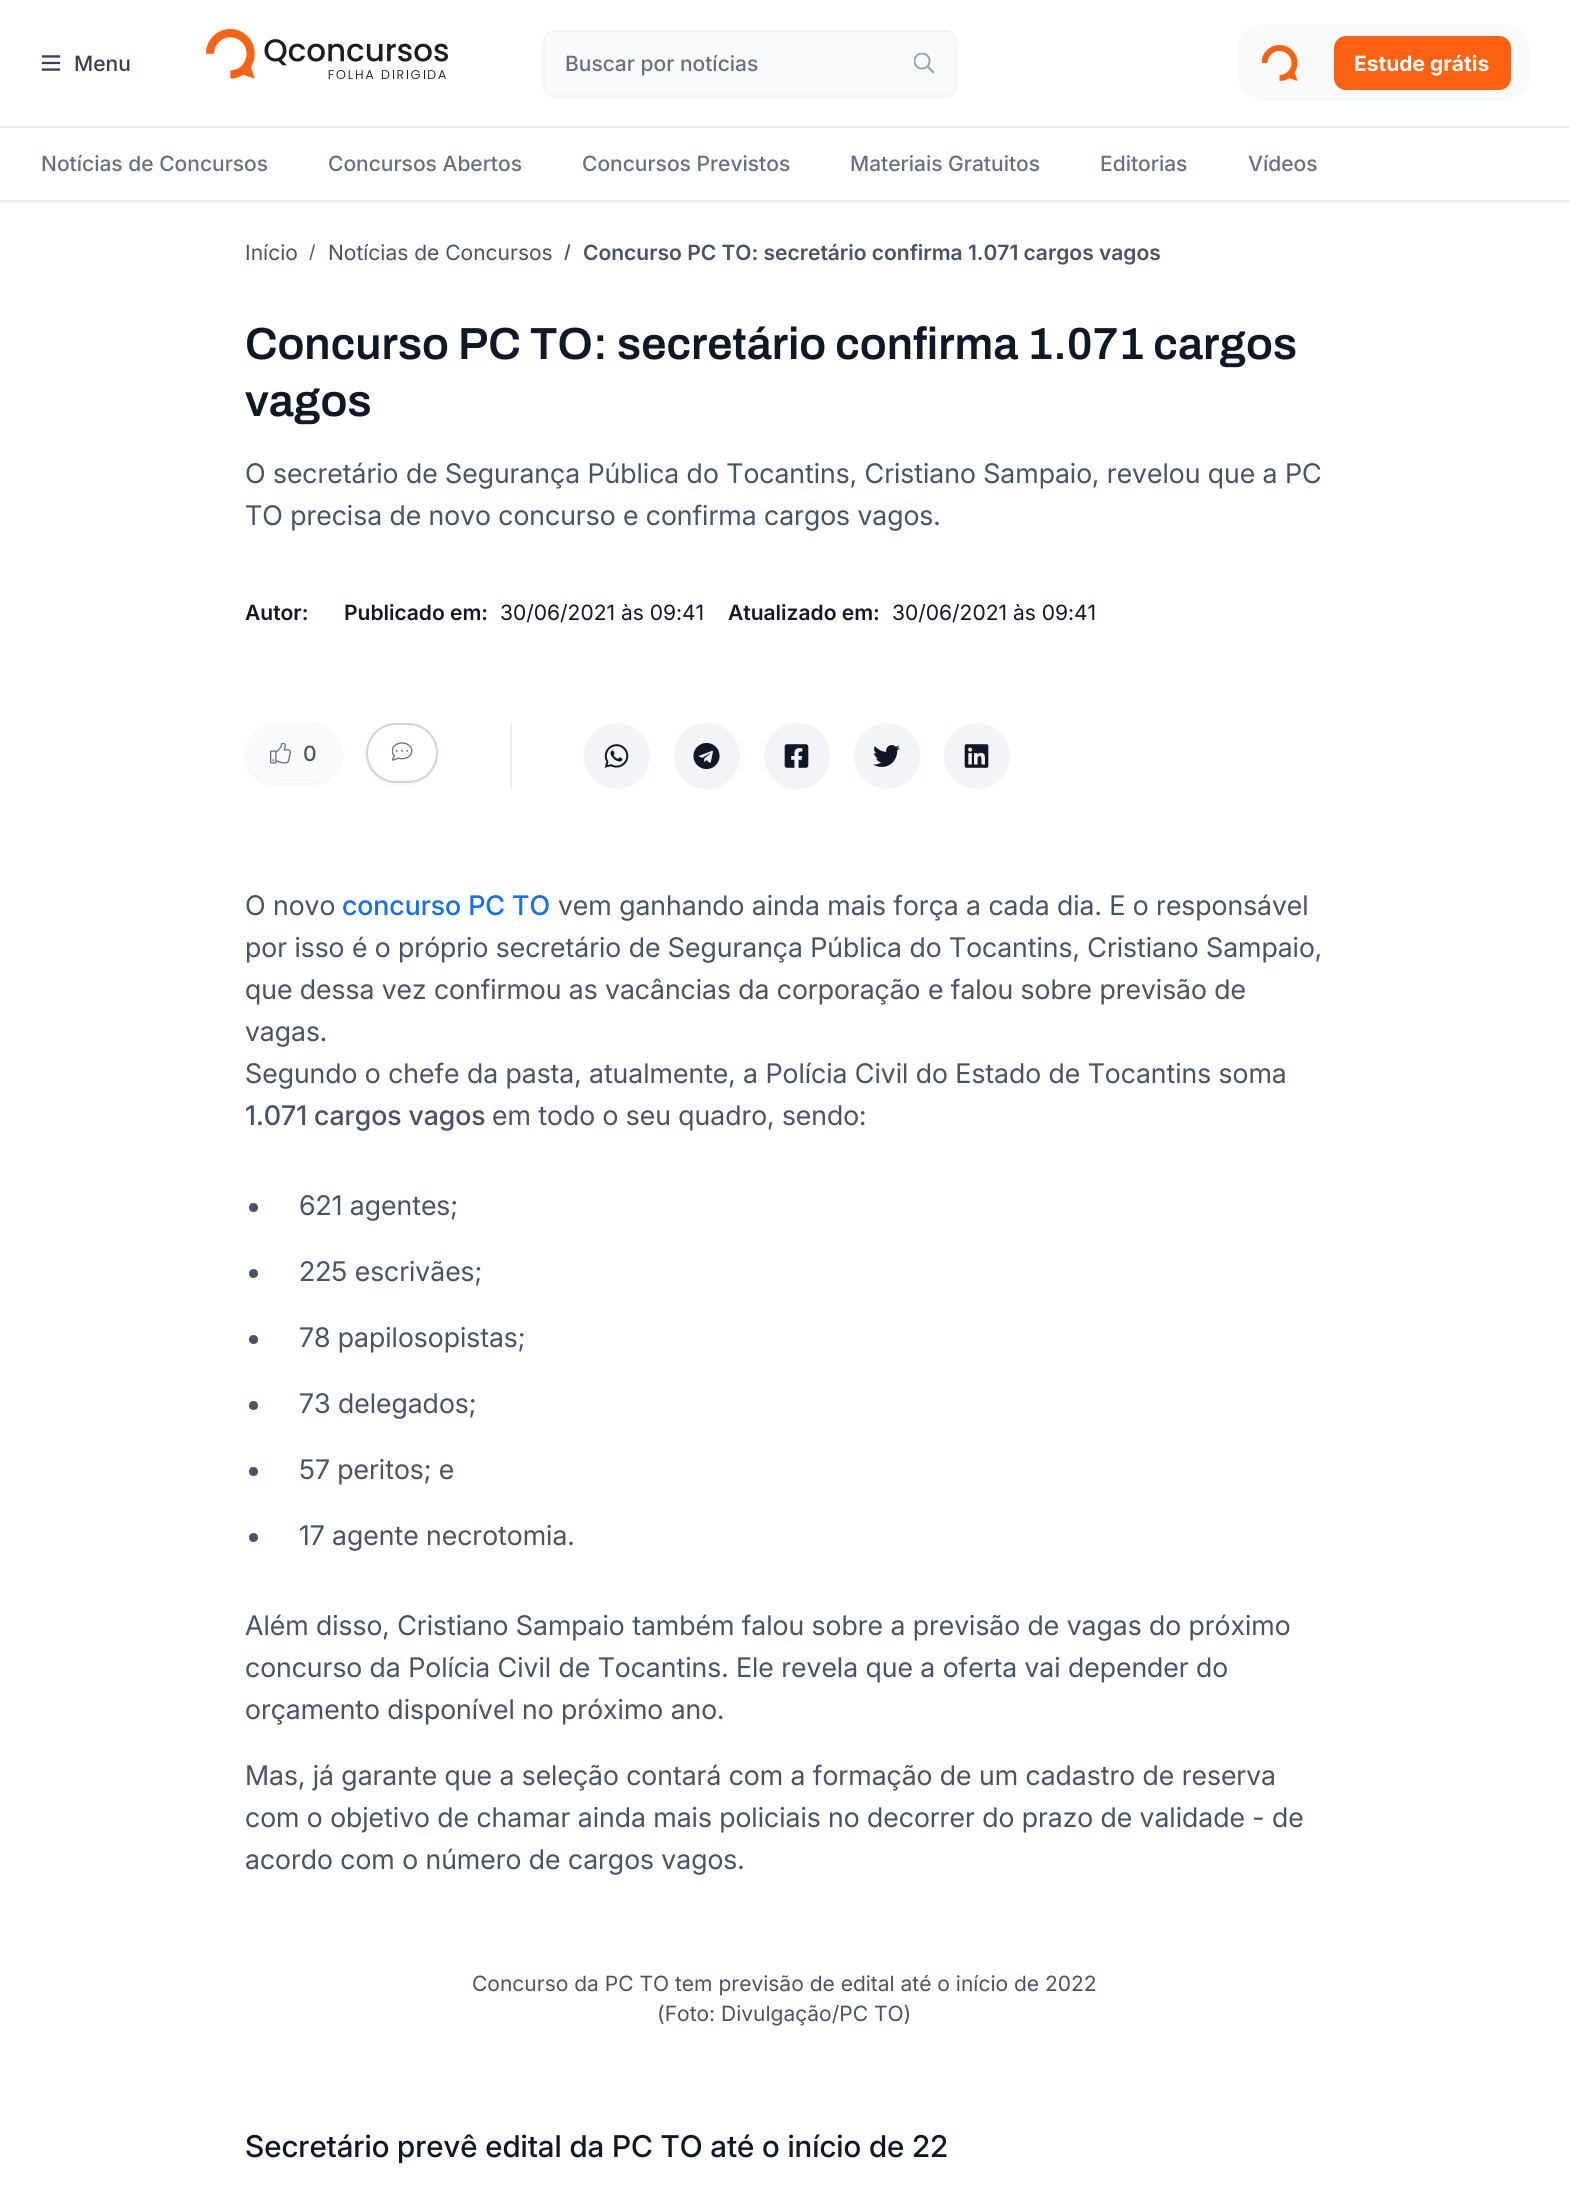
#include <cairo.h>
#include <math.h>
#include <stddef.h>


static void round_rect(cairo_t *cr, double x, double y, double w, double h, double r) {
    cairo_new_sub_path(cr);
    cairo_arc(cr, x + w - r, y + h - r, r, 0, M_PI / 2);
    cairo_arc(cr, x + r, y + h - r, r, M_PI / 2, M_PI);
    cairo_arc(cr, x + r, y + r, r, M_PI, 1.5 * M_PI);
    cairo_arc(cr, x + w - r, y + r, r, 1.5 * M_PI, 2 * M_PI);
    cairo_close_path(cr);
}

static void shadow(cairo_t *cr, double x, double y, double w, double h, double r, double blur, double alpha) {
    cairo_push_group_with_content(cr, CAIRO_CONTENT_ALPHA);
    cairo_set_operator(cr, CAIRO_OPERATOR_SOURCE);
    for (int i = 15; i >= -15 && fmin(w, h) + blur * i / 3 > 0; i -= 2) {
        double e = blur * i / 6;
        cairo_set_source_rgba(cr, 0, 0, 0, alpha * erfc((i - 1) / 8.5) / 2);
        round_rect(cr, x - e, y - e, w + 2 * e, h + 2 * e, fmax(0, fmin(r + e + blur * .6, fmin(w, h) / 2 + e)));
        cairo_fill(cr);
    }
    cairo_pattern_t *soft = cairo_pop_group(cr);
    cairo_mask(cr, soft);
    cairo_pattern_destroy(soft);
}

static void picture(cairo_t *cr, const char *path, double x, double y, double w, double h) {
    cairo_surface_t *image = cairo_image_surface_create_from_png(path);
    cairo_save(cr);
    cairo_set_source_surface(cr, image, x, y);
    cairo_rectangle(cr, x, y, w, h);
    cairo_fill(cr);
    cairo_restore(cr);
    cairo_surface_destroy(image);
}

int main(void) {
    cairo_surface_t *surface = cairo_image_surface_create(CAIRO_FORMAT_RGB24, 1569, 2201);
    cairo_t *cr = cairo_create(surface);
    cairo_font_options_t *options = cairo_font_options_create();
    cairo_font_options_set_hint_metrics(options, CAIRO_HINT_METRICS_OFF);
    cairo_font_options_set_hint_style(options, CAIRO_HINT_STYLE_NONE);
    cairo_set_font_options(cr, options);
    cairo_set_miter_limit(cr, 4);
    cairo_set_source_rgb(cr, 1, 1, 1);
    cairo_paint(cr);
    picture(cr, "img1.png", 41, 55, 20, 16);
    cairo_select_font_face(cr, "Inter Medium", CAIRO_FONT_SLANT_NORMAL, CAIRO_FONT_WEIGHT_NORMAL);
    cairo_set_font_size(cr, 21);
    cairo_set_source_rgb(cr, 0.204, 0.251, 0.329);
    cairo_move_to(cr, 74, 71);
    cairo_show_text(cr, "Menu");
    picture(cr, "img2.png", 205, 29, 243, 51);
    cairo_set_source_rgb(cr, 0, 0, 0);
    shadow(cr, 543, 32, 414, 66, 12, 1.5, 0.05);
    cairo_set_source_rgb(cr, 1, 1, 1);
    round_rect(cr, 544, 31, 412, 64, 11);
    cairo_fill_preserve(cr);
    cairo_set_source_rgb(cr, 0.949, 0.957, 0.969);
    cairo_stroke(cr);
    cairo_set_source_rgb(cr, 0.976, 0.98, 0.984);
    cairo_new_path(cr);
    cairo_move_to(cr, 556, 32);
    cairo_line_to(cr, 893, 32);
    cairo_line_to(cr, 893, 95);
    cairo_line_to(cr, 556, 95);
    cairo_curve_to(cr, 550, 95, 545, 90, 545, 84);
    cairo_line_to(cr, 545, 43);
    cairo_curve_to(cr, 545, 37, 550, 32, 556, 32);
    cairo_close_path(cr);
    cairo_fill(cr);
    cairo_set_source_rgb(cr, 0.4, 0.439, 0.522);
    cairo_move_to(cr, 565, 71);
    cairo_show_text(cr, "Buscar por notícias");
    cairo_set_source_rgb(cr, 0.976, 0.98, 0.984);
    cairo_new_path(cr);
    cairo_move_to(cr, 893, 32);
    cairo_line_to(cr, 945, 32);
    cairo_curve_to(cr, 951, 32, 956, 37, 956, 43);
    cairo_line_to(cr, 956, 84);
    cairo_curve_to(cr, 956, 90, 951, 95, 945, 95);
    cairo_line_to(cr, 893, 95);
    cairo_close_path(cr);
    cairo_fill(cr);
    picture(cr, "img3.png", 914, 53, 21, 21);
    round_rect(cr, 1238, 24, 291, 78, 24);
    cairo_fill(cr);
    picture(cr, "img4.png", 1262, 45, 36, 36);
    cairo_set_source_rgb(cr, 0.996, 0.38, 0.071);
    round_rect(cr, 1334, 36, 177, 54, 12);
    cairo_fill(cr);
    cairo_select_font_face(cr, "Inter", CAIRO_FONT_SLANT_NORMAL, CAIRO_FONT_WEIGHT_BOLD);
    cairo_set_source_rgb(cr, 1, 1, 1);
    cairo_move_to(cr, 1354, 71);
    cairo_show_text(cr, "Estude grátis");
    cairo_save(cr);
    cairo_rectangle(cr, 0, 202, 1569, 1);
    cairo_clip(cr);
    cairo_set_source_rgb(cr, 0.063, 0.094, 0.157);
    shadow(cr, 0, 128, 1569, 75, 0, 1.5, 0.05);
    cairo_restore(cr);
    cairo_set_source_rgb(cr, 0.918, 0.925, 0.941);
    cairo_rectangle(cr, 0, 126, 1569, 2);
    cairo_fill(cr);
    cairo_rectangle(cr, 0, 200, 1569, 2);
    cairo_fill(cr);
    cairo_select_font_face(cr, "Inter Medium", CAIRO_FONT_SLANT_NORMAL, CAIRO_FONT_WEIGHT_NORMAL);
    cairo_set_source_rgb(cr, 0.4, 0.439, 0.522);
    cairo_move_to(cr, 41, 171);
    cairo_show_text(cr, "Notícias de Concursos");
    cairo_move_to(cr, 328, 171);
    cairo_show_text(cr, "Concursos Abertos");
    cairo_move_to(cr, 582, 171);
    cairo_show_text(cr, "Concursos Previstos");
    cairo_move_to(cr, 850, 171);
    cairo_show_text(cr, "Materiais Gratuitos");
    cairo_move_to(cr, 1100, 171);
    cairo_show_text(cr, "Editorias");
    cairo_move_to(cr, 1248, 171);
    cairo_show_text(cr, "Vídeos");
    cairo_select_font_face(cr, "Inter", CAIRO_FONT_SLANT_NORMAL, CAIRO_FONT_WEIGHT_NORMAL);
    cairo_set_source_rgb(cr, 0.278, 0.329, 0.404);
    cairo_move_to(cr, 245, 260);
    cairo_show_text(cr, "Início");
    cairo_set_font_size(cr, 18);
    cairo_move_to(cr, 309, 258);
    cairo_show_text(cr, "/");
    cairo_set_font_size(cr, 21);
    cairo_move_to(cr, 328, 260);
    cairo_show_text(cr, "Notícias de Concursos");
    cairo_select_font_face(cr, "Inter SemiBold", CAIRO_FONT_SLANT_NORMAL, CAIRO_FONT_WEIGHT_NORMAL);
    cairo_set_font_size(cr, 18);
    cairo_move_to(cr, 564, 258);
    cairo_show_text(cr, "/");
    cairo_set_font_size(cr, 21);
    cairo_move_to(cr, 583, 260);
    cairo_show_text(cr, "Concurso PC TO: secretário confirma 1.071 cargos vagos");
    cairo_select_font_face(cr, "Archivo SemiBold", CAIRO_FONT_SLANT_NORMAL, CAIRO_FONT_WEIGHT_NORMAL);
    cairo_set_font_size(cr, 45);
    cairo_set_source_rgb(cr, 0.063, 0.094, 0.157);
    cairo_move_to(cr, 245, 359);
    cairo_show_text(cr, "Concurso PC TO: secretário confirma 1.071 cargos");
    cairo_move_to(cr, 245, 416);
    cairo_show_text(cr, "vagos");
    cairo_select_font_face(cr, "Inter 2", CAIRO_FONT_SLANT_NORMAL, CAIRO_FONT_WEIGHT_NORMAL);
    cairo_set_font_size(cr, 27);
    cairo_set_source_rgb(cr, 0.278, 0.329, 0.404);
    cairo_move_to(cr, 245, 483);
    cairo_show_text(cr, "O secretário de Segurança Pública do Tocantins, Cristiano Sampaio, revelou que a PC");
    cairo_move_to(cr, 245, 525);
    cairo_show_text(cr, "TO precisa de novo concurso e confirma cargos vagos.");
    cairo_select_font_face(cr, "Inter SemiBold", CAIRO_FONT_SLANT_NORMAL, CAIRO_FONT_WEIGHT_NORMAL);
    cairo_set_font_size(cr, 21);
    cairo_set_source_rgb(cr, 0.063, 0.094, 0.157);
    cairo_move_to(cr, 245, 620);
    cairo_show_text(cr, "Autor:");
    cairo_move_to(cr, 344, 620);
    cairo_show_text(cr, "Publicado em:");
    cairo_select_font_face(cr, "Inter", CAIRO_FONT_SLANT_NORMAL, CAIRO_FONT_WEIGHT_NORMAL);
    cairo_move_to(cr, 500, 620);
    cairo_show_text(cr, "30/06/2021 às 09:41");
    cairo_select_font_face(cr, "Inter SemiBold", CAIRO_FONT_SLANT_NORMAL, CAIRO_FONT_WEIGHT_NORMAL);
    cairo_move_to(cr, 728, 620);
    cairo_show_text(cr, "Atualizado em:");
    cairo_select_font_face(cr, "Inter", CAIRO_FONT_SLANT_NORMAL, CAIRO_FONT_WEIGHT_NORMAL);
    cairo_move_to(cr, 892, 620);
    cairo_show_text(cr, "30/06/2021 às 09:41");
    cairo_set_source_rgb(cr, 0.063, 0.094, 0.157);
    shadow(cr, 245, 725, 97, 60, 30, 1.5, 0.05);
    cairo_set_source_rgb(cr, 0.976, 0.98, 0.984);
    round_rect(cr, 245, 723, 97, 60, 30);
    cairo_fill(cr);
    picture(cr, "img5.png", 270, 743, 21, 21);
    cairo_select_font_face(cr, "Inter Medium", CAIRO_FONT_SLANT_NORMAL, CAIRO_FONT_WEIGHT_NORMAL);
    cairo_set_source_rgb(cr, 0.278, 0.329, 0.404);
    cairo_move_to(cr, 303, 761);
    cairo_show_text(cr, "0");
    cairo_set_source_rgb(cr, 0.063, 0.094, 0.157);
    shadow(cr, 366, 725, 72, 60, 30, 1.5, 0.05);
    cairo_set_source_rgb(cr, 1, 1, 1);
    round_rect(cr, 367, 724, 70, 58, 29);
    cairo_fill_preserve(cr);
    cairo_set_source_rgb(cr, 0.816, 0.835, 0.867);
    cairo_stroke(cr);
    picture(cr, "img6.png", 392, 742, 21, 19);
    cairo_set_source_rgb(cr, 0.918, 0.925, 0.941);
    cairo_rectangle(cr, 510, 723, 2, 66);
    cairo_fill(cr);
    cairo_set_source_rgb(cr, 0.949, 0.957, 0.969);
    cairo_arc(cr, 617, 756, 33, 0, 2 * M_PI);
    cairo_fill(cr);
    picture(cr, "img7.png", 604, 744, 25, 24);
    cairo_arc(cr, 707, 756, 33, 0, 2 * M_PI);
    cairo_fill(cr);
    picture(cr, "img8.png", 693, 743, 27, 27);
    cairo_arc(cr, 797, 756, 33, 0, 2 * M_PI);
    cairo_fill(cr);
    picture(cr, "img9.png", 784, 744, 25, 24);
    cairo_arc(cr, 887, 756, 33, 0, 2 * M_PI);
    cairo_fill(cr);
    picture(cr, "img10.png", 873, 745, 27, 22);
    cairo_arc(cr, 977, 756, 33, 0, 2 * M_PI);
    cairo_fill(cr);
    picture(cr, "img11.png", 964, 744, 25, 24);
    cairo_select_font_face(cr, "Inter 2", CAIRO_FONT_SLANT_NORMAL, CAIRO_FONT_WEIGHT_NORMAL);
    cairo_set_font_size(cr, 27);
    cairo_set_source_rgb(cr, 0.278, 0.329, 0.404);
    cairo_move_to(cr, 245, 915);
    cairo_show_text(cr, "O novo");
    cairo_select_font_face(cr, "Inter 2 Medium", CAIRO_FONT_SLANT_NORMAL, CAIRO_FONT_WEIGHT_NORMAL);
    cairo_set_source_rgb(cr, 0.082, 0.439, 0.937);
    cairo_move_to(cr, 342, 915);
    cairo_show_text(cr, "concurso PC TO");
    cairo_select_font_face(cr, "Inter 2", CAIRO_FONT_SLANT_NORMAL, CAIRO_FONT_WEIGHT_NORMAL);
    cairo_set_source_rgb(cr, 0.278, 0.329, 0.404);
    cairo_move_to(cr, 558, 915);
    cairo_show_text(cr, "vem ganhando ainda mais força a cada dia. E o responsável");
    cairo_move_to(cr, 245, 957);
    cairo_show_text(cr, "por isso é o próprio secretário de Segurança Pública do Tocantins, Cristiano Sampaio,");
    cairo_move_to(cr, 245, 999);
    cairo_show_text(cr, "que dessa vez confirmou as vacâncias da corporação e falou sobre previsão de");
    cairo_move_to(cr, 245, 1041);
    cairo_show_text(cr, "vagas.");
    cairo_move_to(cr, 245, 1083);
    cairo_show_text(cr, "Segundo o chefe da pasta, atualmente, a Polícia Civil do Estado de Tocantins soma");
    cairo_select_font_face(cr, "Inter 2 Medium", CAIRO_FONT_SLANT_NORMAL, CAIRO_FONT_WEIGHT_NORMAL);
    cairo_move_to(cr, 245, 1125);
    cairo_show_text(cr, "1.071 cargos vagos");
    cairo_select_font_face(cr, "Inter 2", CAIRO_FONT_SLANT_NORMAL, CAIRO_FONT_WEIGHT_NORMAL);
    cairo_move_to(cr, 492, 1125);
    cairo_show_text(cr, "em todo o seu quadro, sendo:");
    cairo_new_path(cr);
    cairo_arc(cr, 253.5, 1207.5, 4.5, 0, 2 * M_PI);
    cairo_fill(cr);
    cairo_move_to(cr, 299, 1215);
    cairo_show_text(cr, "621 agentes;");
    cairo_new_path(cr);
    cairo_arc(cr, 253.5, 1273.5, 4.5, 0, 2 * M_PI);
    cairo_fill(cr);
    cairo_move_to(cr, 299, 1281);
    cairo_show_text(cr, "225 escrivães;");
    cairo_new_path(cr);
    cairo_arc(cr, 253.5, 1339.5, 4.5, 0, 2 * M_PI);
    cairo_fill(cr);
    cairo_move_to(cr, 299, 1347);
    cairo_show_text(cr, "78 papilosopistas;");
    cairo_new_path(cr);
    cairo_arc(cr, 253.5, 1405.5, 4.5, 0, 2 * M_PI);
    cairo_fill(cr);
    cairo_move_to(cr, 299, 1413);
    cairo_show_text(cr, "73 delegados;");
    cairo_new_path(cr);
    cairo_arc(cr, 253.5, 1471.5, 4.5, 0, 2 * M_PI);
    cairo_fill(cr);
    cairo_move_to(cr, 299, 1479);
    cairo_show_text(cr, "57 peritos; e");
    cairo_new_path(cr);
    cairo_arc(cr, 253.5, 1537.5, 4.5, 0, 2 * M_PI);
    cairo_fill(cr);
    cairo_move_to(cr, 299, 1545);
    cairo_show_text(cr, "17 agente necrotomia.");
    cairo_move_to(cr, 245, 1635);
    cairo_show_text(cr, "Além disso, Cristiano Sampaio também falou sobre a previsão de vagas do próximo");
    cairo_move_to(cr, 245, 1677);
    cairo_show_text(cr, "concurso da Polícia Civil de Tocantins. Ele revela que a oferta vai depender do");
    cairo_move_to(cr, 245, 1719);
    cairo_show_text(cr, "orçamento disponível no próximo ano.");
    cairo_move_to(cr, 245, 1785);
    cairo_show_text(cr, "Mas, já garante que a seleção contará com a formação de um cadastro de reserva");
    cairo_move_to(cr, 245, 1827);
    cairo_show_text(cr, "com o objetivo de chamar ainda mais policiais no decorrer do prazo de validade - de");
    cairo_move_to(cr, 245, 1869);
    cairo_show_text(cr, "acordo com o número de cargos vagos.");
    cairo_select_font_face(cr, "Inter", CAIRO_FONT_SLANT_NORMAL, CAIRO_FONT_WEIGHT_NORMAL);
    cairo_set_font_size(cr, 21);
    cairo_move_to(cr, 472, 1991);
    cairo_show_text(cr, "Concurso da PC TO tem previsão de edital até o início de 2022");
    cairo_move_to(cr, 657, 2021);
    cairo_show_text(cr, "(Foto: Divulgação/PC TO)");
    cairo_select_font_face(cr, "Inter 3 Medium", CAIRO_FONT_SLANT_NORMAL, CAIRO_FONT_WEIGHT_NORMAL);
    cairo_set_font_size(cr, 30);
    cairo_set_source_rgb(cr, 0.063, 0.094, 0.157);
    cairo_move_to(cr, 245, 2157);
    cairo_show_text(cr, "Secretário prevê edital da PC TO até o início de 22");
    cairo_surface_write_to_png(surface, "page.png");
    cairo_font_options_destroy(options);
    cairo_destroy(cr);
    cairo_surface_destroy(surface);
    return 0;
}
